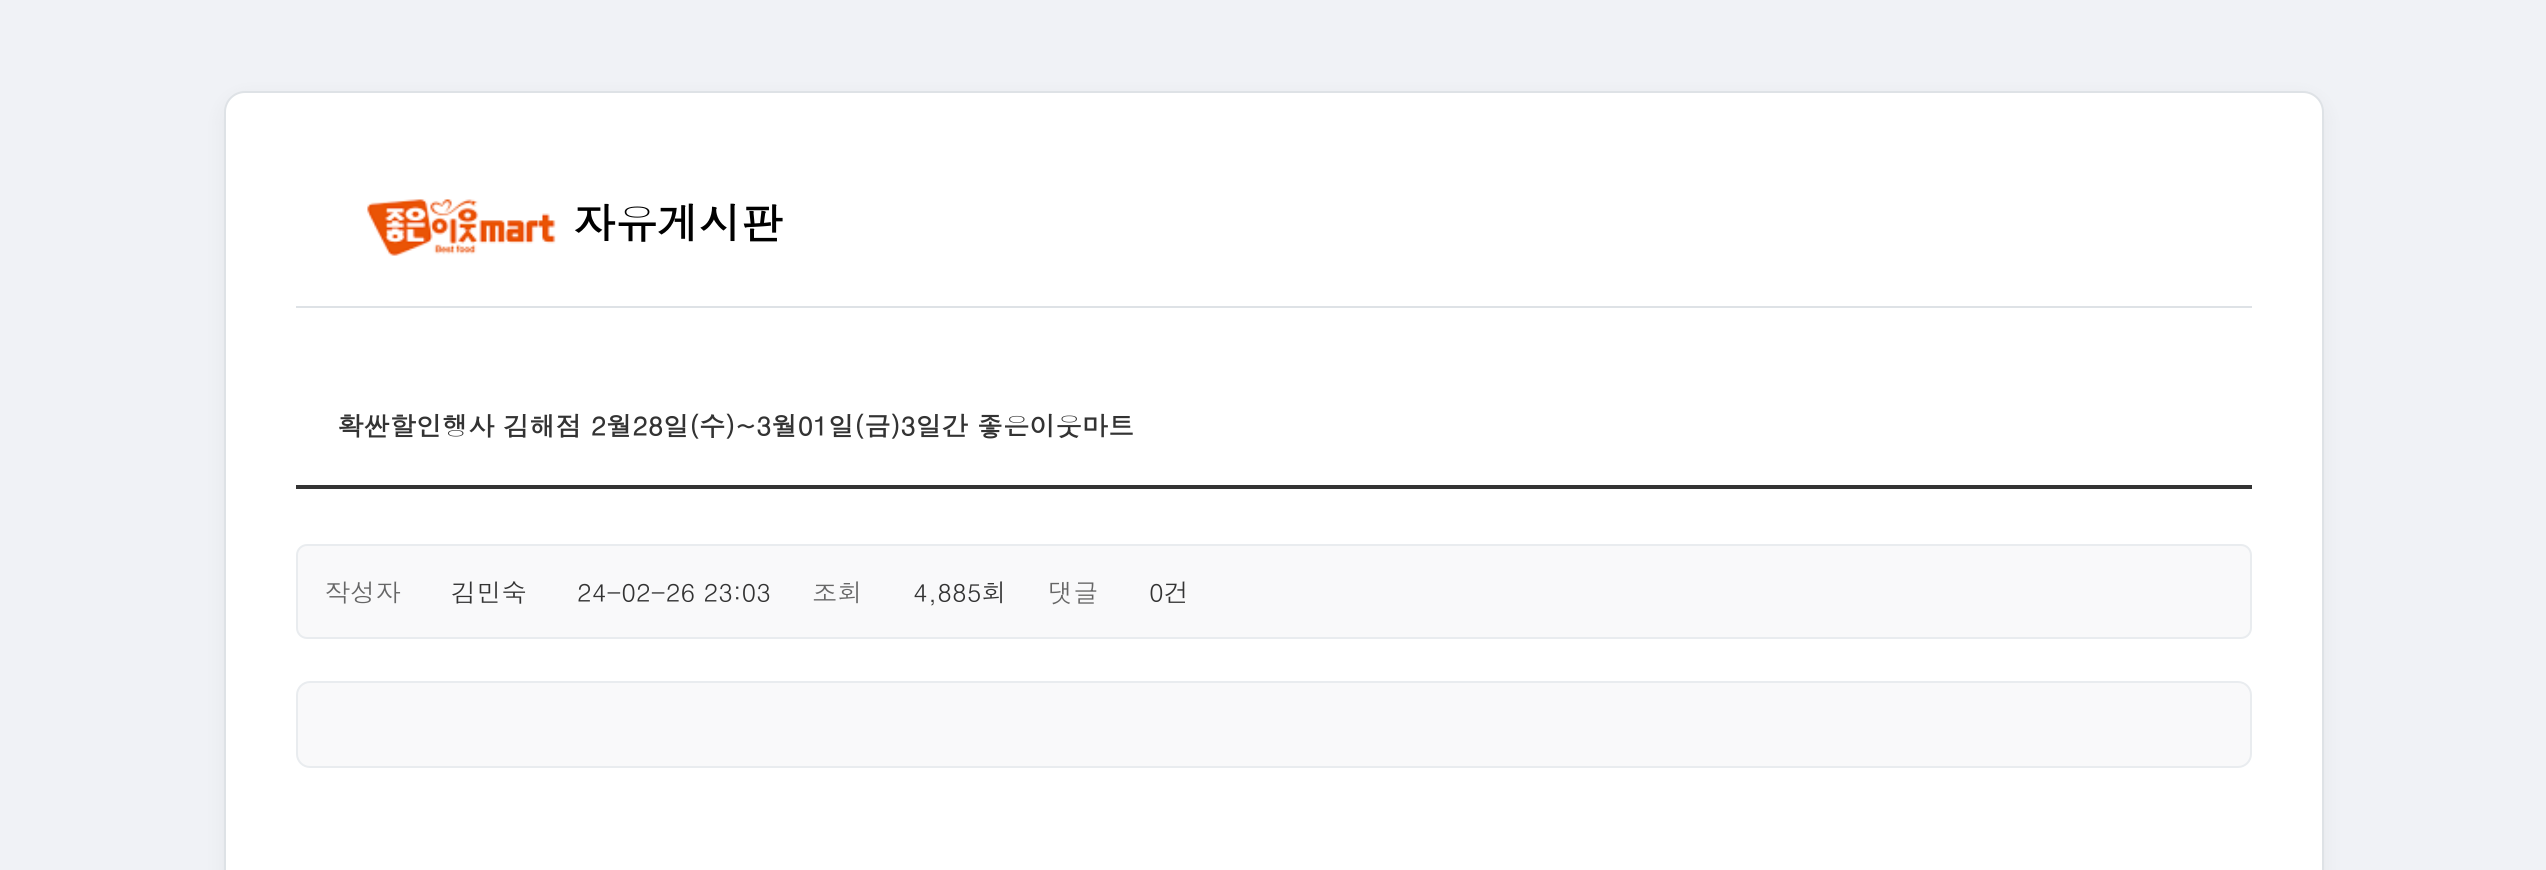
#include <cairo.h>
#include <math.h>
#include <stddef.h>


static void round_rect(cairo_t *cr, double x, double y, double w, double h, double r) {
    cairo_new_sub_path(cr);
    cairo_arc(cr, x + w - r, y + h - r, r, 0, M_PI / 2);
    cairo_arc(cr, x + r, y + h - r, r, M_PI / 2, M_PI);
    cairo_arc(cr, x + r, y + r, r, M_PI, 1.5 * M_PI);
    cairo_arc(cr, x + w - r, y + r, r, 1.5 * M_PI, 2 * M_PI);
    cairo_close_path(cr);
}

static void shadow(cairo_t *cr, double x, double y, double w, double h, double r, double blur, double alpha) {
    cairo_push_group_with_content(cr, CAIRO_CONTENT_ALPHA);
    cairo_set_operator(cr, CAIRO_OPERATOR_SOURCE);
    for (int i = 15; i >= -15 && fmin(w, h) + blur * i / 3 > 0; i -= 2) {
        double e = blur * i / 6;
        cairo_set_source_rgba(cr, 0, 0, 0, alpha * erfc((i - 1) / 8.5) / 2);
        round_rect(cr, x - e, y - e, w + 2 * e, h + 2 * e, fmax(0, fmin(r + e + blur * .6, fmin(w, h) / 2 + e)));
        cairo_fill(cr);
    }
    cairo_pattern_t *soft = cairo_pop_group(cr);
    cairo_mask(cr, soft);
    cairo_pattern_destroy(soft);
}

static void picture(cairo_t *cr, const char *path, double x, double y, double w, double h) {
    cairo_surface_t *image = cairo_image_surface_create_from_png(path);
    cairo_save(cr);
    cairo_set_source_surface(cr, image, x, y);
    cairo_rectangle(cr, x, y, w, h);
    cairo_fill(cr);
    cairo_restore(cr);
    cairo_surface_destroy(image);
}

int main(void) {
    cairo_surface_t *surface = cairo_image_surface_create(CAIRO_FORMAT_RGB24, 2546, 870);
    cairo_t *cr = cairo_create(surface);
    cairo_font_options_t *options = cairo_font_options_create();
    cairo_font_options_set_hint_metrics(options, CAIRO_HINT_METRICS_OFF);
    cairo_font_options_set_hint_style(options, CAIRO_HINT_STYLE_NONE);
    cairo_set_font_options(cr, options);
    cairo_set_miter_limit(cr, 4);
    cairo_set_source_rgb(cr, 0.941, 0.949, 0.961);
    cairo_paint(cr);
    cairo_set_source_rgb(cr, 0, 0, 0);
    shadow(cr, 224, 98, 2100, 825, 21, 10.5, 0.05);
    cairo_set_source_rgb(cr, 1, 1, 1);
    round_rect(cr, 225, 92, 2098, 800, 20);
    cairo_fill_preserve(cr);
    cairo_set_source_rgb(cr, 0.871, 0.886, 0.902);
    cairo_stroke(cr);
    cairo_rectangle(cr, 296, 306, 1956, 2);
    cairo_fill(cr);
    picture(cr, "img1.png", 367, 199, 189, 57);
    cairo_select_font_face(cr, "Dotum", CAIRO_FONT_SLANT_NORMAL, CAIRO_FONT_WEIGHT_BOLD);
    cairo_set_font_size(cr, 42);
    cairo_set_source_rgb(cr, 0, 0, 0);
    cairo_move_to(cr, 573, 239);
    cairo_show_text(cr, "자유게시판");
    cairo_set_source_rgb(cr, 0.2, 0.2, 0.2);
    cairo_rectangle(cr, 296, 485, 1956, 4);
    cairo_fill(cr);
    cairo_set_font_size(cr, 26.25);
    cairo_move_to(cr, 337, 436);
    cairo_show_text(cr, "확싼할인행사 김해점 2월28일(수)~3월01일(금)3일간 좋은이웃마트");
    cairo_set_source_rgb(cr, 0.973, 0.976, 0.98);
    round_rect(cr, 297, 545, 1954, 93, 10);
    cairo_fill_preserve(cr);
    cairo_set_source_rgb(cr, 0.914, 0.925, 0.937);
    cairo_stroke(cr);
    cairo_select_font_face(cr, "Dotum", CAIRO_FONT_SLANT_NORMAL, CAIRO_FONT_WEIGHT_NORMAL);
    cairo_set_font_size(cr, 25.25);
    cairo_set_source_rgb(cr, 0.4, 0.4, 0.4);
    cairo_move_to(cr, 325, 602);
    cairo_show_text(cr, "작성자");
    cairo_set_source_rgb(cr, 0.2, 0.2, 0.2);
    cairo_move_to(cr, 451, 602);
    cairo_show_text(cr, "김민숙");
    cairo_move_to(cr, 577, 602);
    cairo_show_text(cr, "24-02-26 23:03");
    cairo_set_source_rgb(cr, 0.4, 0.4, 0.4);
    cairo_move_to(cr, 812, 602);
    cairo_show_text(cr, "조회");
    cairo_set_source_rgb(cr, 0.2, 0.2, 0.2);
    cairo_move_to(cr, 913, 602);
    cairo_show_text(cr, "4,885회");
    cairo_set_source_rgb(cr, 0.4, 0.4, 0.4);
    cairo_move_to(cr, 1048, 602);
    cairo_show_text(cr, "댓글");
    cairo_set_source_rgb(cr, 0.2, 0.2, 0.2);
    cairo_move_to(cr, 1149, 602);
    cairo_show_text(cr, "0건");
    cairo_set_source_rgb(cr, 0.973, 0.976, 0.98);
    round_rect(cr, 297, 682, 1954, 85, 13);
    cairo_fill_preserve(cr);
    cairo_set_source_rgb(cr, 0.914, 0.925, 0.937);
    cairo_stroke(cr);
    cairo_surface_write_to_png(surface, "page.png");
    cairo_font_options_destroy(options);
    cairo_destroy(cr);
    cairo_surface_destroy(surface);
    return 0;
}
